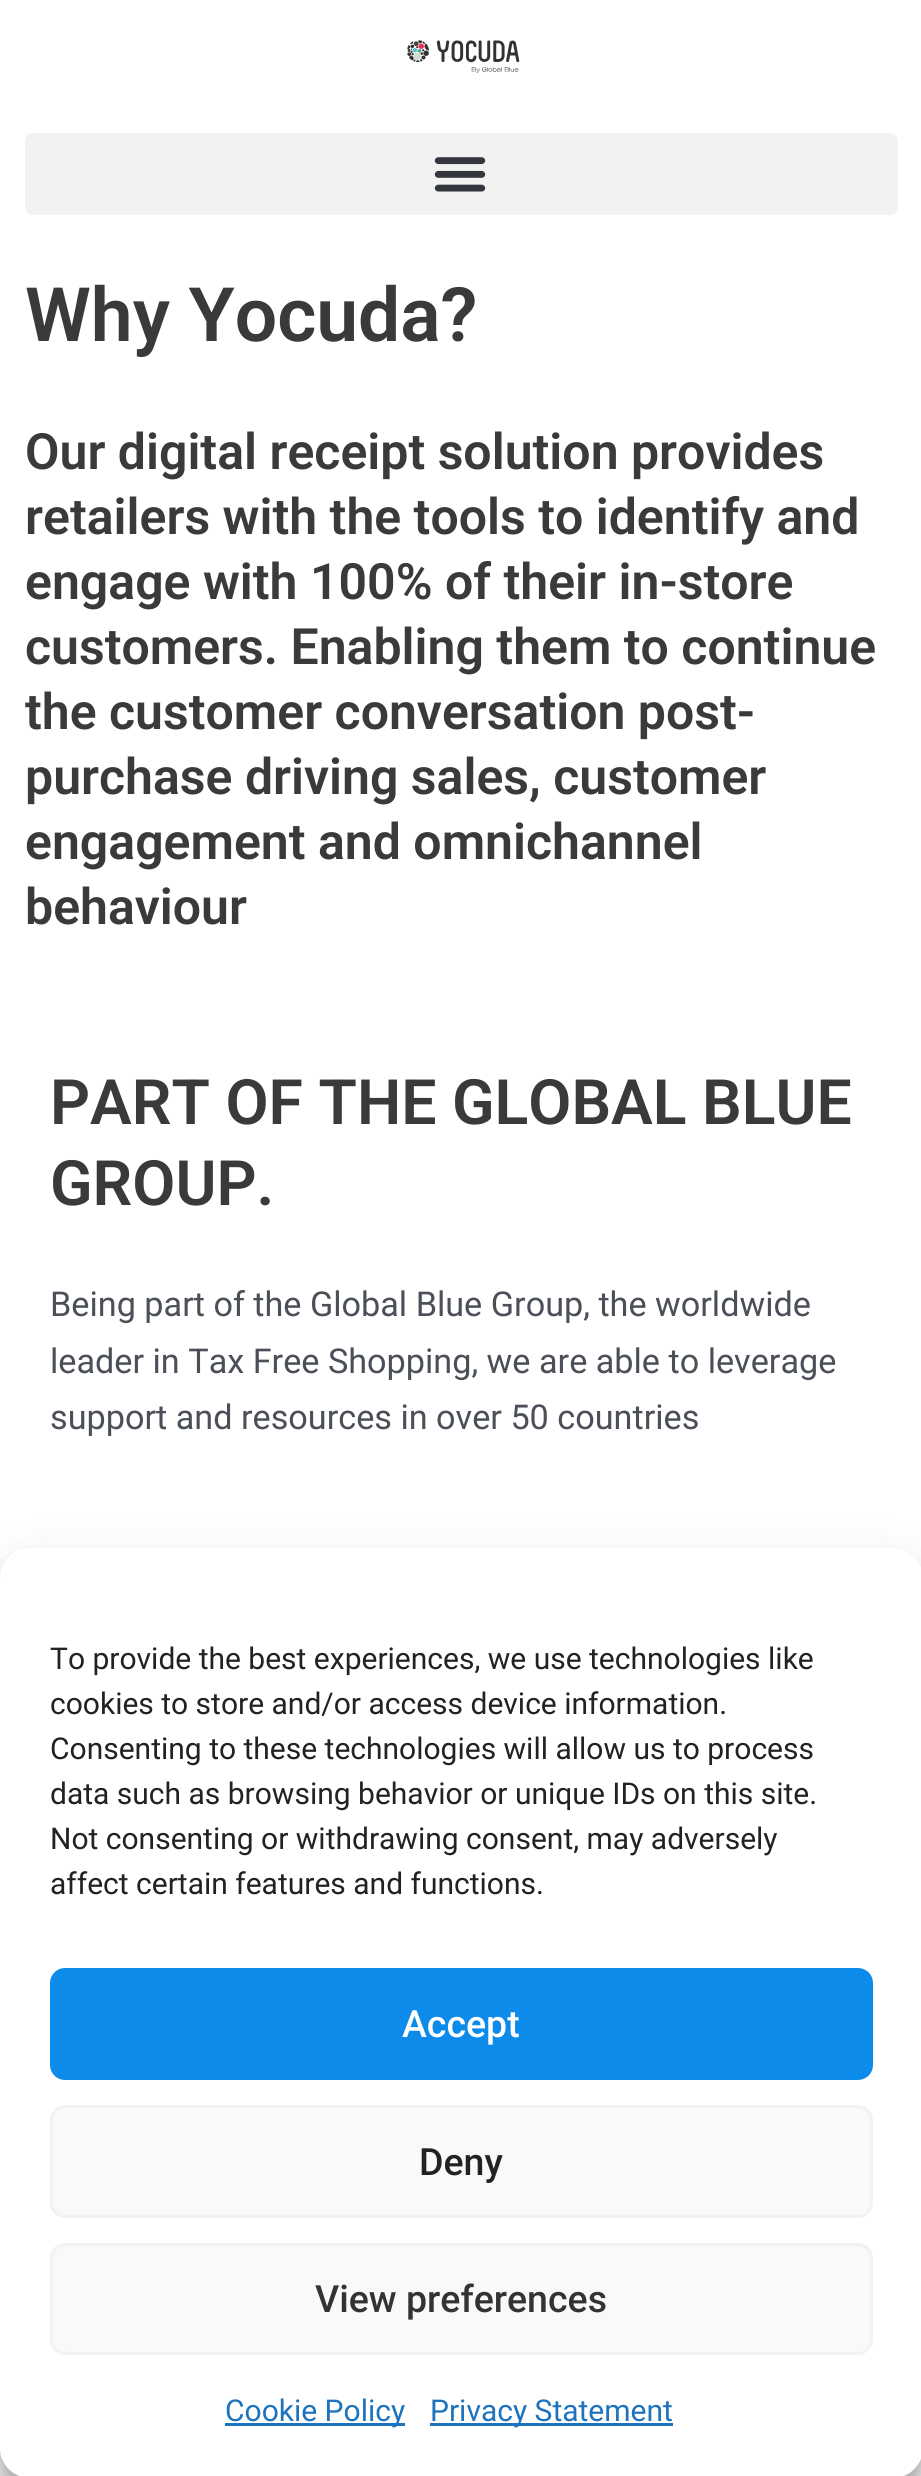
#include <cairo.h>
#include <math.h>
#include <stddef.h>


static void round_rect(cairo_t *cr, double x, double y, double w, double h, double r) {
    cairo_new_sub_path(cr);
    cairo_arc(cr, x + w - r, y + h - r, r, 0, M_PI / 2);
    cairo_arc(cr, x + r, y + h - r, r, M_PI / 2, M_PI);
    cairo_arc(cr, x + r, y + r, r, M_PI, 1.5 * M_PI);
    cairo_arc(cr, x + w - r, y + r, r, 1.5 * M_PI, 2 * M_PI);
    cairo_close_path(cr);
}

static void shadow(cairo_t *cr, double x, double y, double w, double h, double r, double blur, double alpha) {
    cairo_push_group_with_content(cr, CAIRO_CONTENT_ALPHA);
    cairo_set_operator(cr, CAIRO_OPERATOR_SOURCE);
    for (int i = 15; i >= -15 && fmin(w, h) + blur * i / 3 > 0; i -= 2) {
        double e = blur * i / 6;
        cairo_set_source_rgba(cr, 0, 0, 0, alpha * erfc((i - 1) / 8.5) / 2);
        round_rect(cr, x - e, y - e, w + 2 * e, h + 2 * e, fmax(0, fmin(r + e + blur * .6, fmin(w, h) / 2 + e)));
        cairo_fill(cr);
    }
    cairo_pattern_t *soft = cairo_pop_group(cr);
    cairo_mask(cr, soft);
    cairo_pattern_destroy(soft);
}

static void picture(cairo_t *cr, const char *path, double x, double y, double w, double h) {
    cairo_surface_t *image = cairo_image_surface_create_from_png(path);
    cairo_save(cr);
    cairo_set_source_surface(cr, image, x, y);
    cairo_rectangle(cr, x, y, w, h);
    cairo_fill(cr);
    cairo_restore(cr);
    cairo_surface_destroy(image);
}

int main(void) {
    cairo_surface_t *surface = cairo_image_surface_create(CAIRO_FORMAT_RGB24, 921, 2476);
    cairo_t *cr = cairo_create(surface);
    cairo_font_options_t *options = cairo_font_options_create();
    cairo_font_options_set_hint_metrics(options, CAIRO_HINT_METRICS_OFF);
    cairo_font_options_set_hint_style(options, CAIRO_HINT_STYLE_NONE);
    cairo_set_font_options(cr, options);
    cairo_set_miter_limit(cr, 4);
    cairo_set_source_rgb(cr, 1, 1, 1);
    cairo_paint(cr);
    picture(cr, "img1.png", 407, 40, 113, 33);
    cairo_set_source_rgb(cr, 0.949, 0.949, 0.949);
    round_rect(cr, 25, 133, 873, 82, 8);
    cairo_fill(cr);
    picture(cr, "img2.png", 434, 157, 52, 35);
    cairo_select_font_face(cr, "Roboto SemiBold", CAIRO_FONT_SLANT_NORMAL, CAIRO_FONT_WEIGHT_NORMAL);
    cairo_set_font_size(cr, 75);
    cairo_set_source_rgb(cr, 0.227, 0.227, 0.227);
    cairo_move_to(cr, 25, 341);
    cairo_show_text(cr, "Why Yocuda?");
    cairo_set_font_size(cr, 50);
    cairo_move_to(cr, 25, 469);
    cairo_show_text(cr, "Our digital receipt solution provides");
    cairo_move_to(cr, 25, 534);
    cairo_show_text(cr, "retailers with the tools to identify and");
    cairo_move_to(cr, 25, 599);
    cairo_show_text(cr, "engage with 100% of their in-store");
    cairo_move_to(cr, 25, 664);
    cairo_show_text(cr, "customers. Enabling them to continue");
    cairo_move_to(cr, 25, 729);
    cairo_show_text(cr, "the customer conversation post-");
    cairo_move_to(cr, 25, 794);
    cairo_show_text(cr, "purchase driving sales, customer");
    cairo_move_to(cr, 25, 859);
    cairo_show_text(cr, "engagement and omnichannel");
    cairo_move_to(cr, 25, 924);
    cairo_show_text(cr, "behaviour");
    cairo_set_font_size(cr, 62.5);
    cairo_move_to(cr, 50, 1124);
    cairo_show_text(cr, "PART OF THE GLOBAL BLUE");
    cairo_move_to(cr, 50, 1205);
    cairo_show_text(cr, "GROUP.");
    cairo_select_font_face(cr, "Roboto", CAIRO_FONT_SLANT_NORMAL, CAIRO_FONT_WEIGHT_NORMAL);
    cairo_set_font_size(cr, 34.2);
    cairo_set_source_rgb(cr, 0.294, 0.31, 0.345);
    cairo_move_to(cr, 50, 1316);
    cairo_show_text(cr, "Being part of the Global Blue Group, the worldwide");
    cairo_move_to(cr, 50, 1373);
    cairo_show_text(cr, "leader in Tax Free Shopping, we are able to leverage");
    cairo_move_to(cr, 50, 1429);
    cairo_show_text(cr, "support and resources in over 50 countries");
    cairo_set_source_rgb(cr, 0, 0, 0);
    shadow(cr, 0, 1563, 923, 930, 30, 7.5, 0.23);
    shadow(cr, 0, 1573, 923, 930, 30, 25, 0.19);
    cairo_set_source_rgb(cr, 1, 1, 1);
    round_rect(cr, 0, 1548, 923, 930, 30);
    cairo_fill(cr);
    cairo_set_font_size(cr, 30);
    cairo_set_source_rgb(cr, 0.133, 0.133, 0.133);
    cairo_move_to(cr, 50, 1669);
    cairo_show_text(cr, "To provide the best experiences, we use technologies like");
    cairo_move_to(cr, 50, 1714);
    cairo_show_text(cr, "cookies to store and/or access device information.");
    cairo_move_to(cr, 50, 1759);
    cairo_show_text(cr, "Consenting to these technologies will allow us to process");
    cairo_move_to(cr, 50, 1804);
    cairo_show_text(cr, "data such as browsing behavior or unique IDs on this site.");
    cairo_move_to(cr, 50, 1849);
    cairo_show_text(cr, "Not consenting or withdrawing consent, may adversely");
    cairo_move_to(cr, 50, 1894);
    cairo_show_text(cr, "affect certain features and functions.");
    cairo_set_source_rgb(cr, 0.051, 0.545, 0.918);
    round_rect(cr, 51.5, 1969.5, 820, 109, 13.5);
    cairo_fill_preserve(cr);
    cairo_set_line_width(cr, 3);
    cairo_stroke(cr);
    cairo_select_font_face(cr, "Roboto Medium", CAIRO_FONT_SLANT_NORMAL, CAIRO_FONT_WEIGHT_NORMAL);
    cairo_set_font_size(cr, 37.5);
    cairo_set_source_rgb(cr, 1, 1, 1);
    cairo_move_to(cr, 402, 2037);
    cairo_show_text(cr, "Accept");
    cairo_set_source_rgb(cr, 0.976, 0.976, 0.976);
    round_rect(cr, 51.5, 2106.5, 820, 110, 13.5);
    cairo_fill_preserve(cr);
    cairo_set_source_rgb(cr, 0.949, 0.949, 0.949);
    cairo_stroke(cr);
    cairo_set_source_rgb(cr, 0.133, 0.133, 0.133);
    cairo_move_to(cr, 419, 2175);
    cairo_show_text(cr, "Deny");
    cairo_set_source_rgb(cr, 0.976, 0.976, 0.976);
    round_rect(cr, 51.5, 2244.5, 820, 109, 13.5);
    cairo_fill_preserve(cr);
    cairo_set_source_rgb(cr, 0.949, 0.949, 0.949);
    cairo_stroke(cr);
    cairo_set_source_rgb(cr, 0.2, 0.2, 0.2);
    cairo_move_to(cr, 315, 2312);
    cairo_show_text(cr, "View preferences");
    cairo_set_source_rgb(cr, 0.118, 0.451, 0.745);
    cairo_rectangle(cr, 225, 2423, 180, 3);
    cairo_fill(cr);
    cairo_select_font_face(cr, "Roboto", CAIRO_FONT_SLANT_NORMAL, CAIRO_FONT_WEIGHT_NORMAL);
    cairo_set_font_size(cr, 30);
    cairo_move_to(cr, 225, 2421);
    cairo_show_text(cr, "Cookie Policy");
    cairo_rectangle(cr, 430, 2423, 243, 3);
    cairo_fill(cr);
    cairo_move_to(cr, 430, 2421);
    cairo_show_text(cr, "Privacy Statement");
    cairo_surface_write_to_png(surface, "page.png");
    cairo_font_options_destroy(options);
    cairo_destroy(cr);
    cairo_surface_destroy(surface);
    return 0;
}
